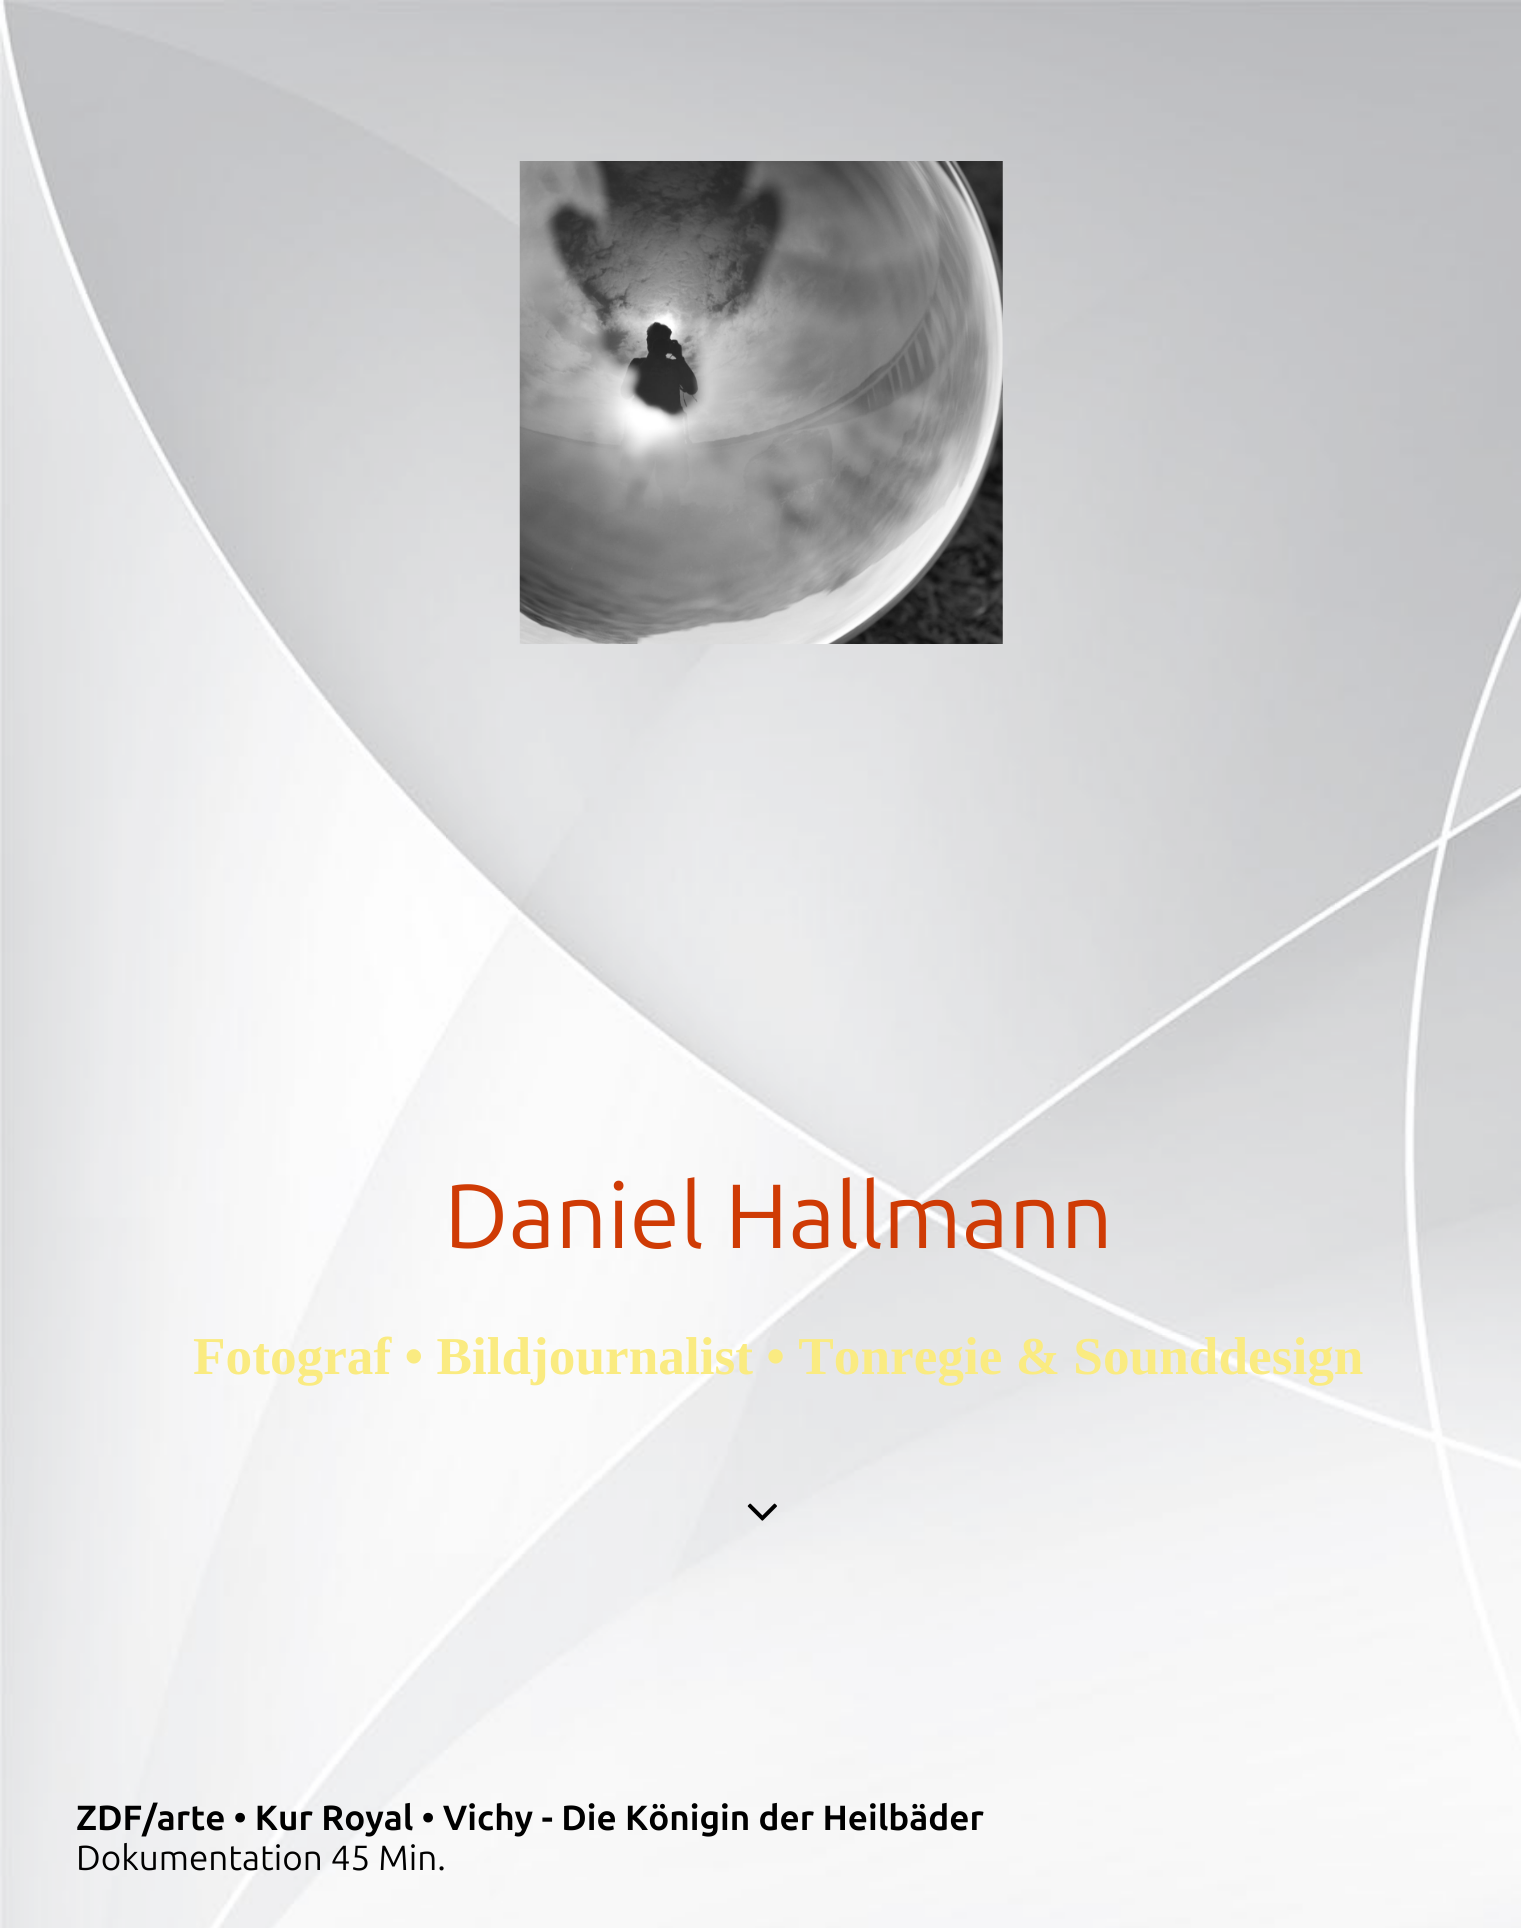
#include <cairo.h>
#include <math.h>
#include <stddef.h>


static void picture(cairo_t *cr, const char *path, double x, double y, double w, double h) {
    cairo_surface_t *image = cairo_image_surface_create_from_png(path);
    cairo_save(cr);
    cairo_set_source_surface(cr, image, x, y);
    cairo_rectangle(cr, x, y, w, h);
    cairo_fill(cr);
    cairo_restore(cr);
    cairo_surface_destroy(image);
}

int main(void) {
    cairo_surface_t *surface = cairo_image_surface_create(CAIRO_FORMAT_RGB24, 1521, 1928);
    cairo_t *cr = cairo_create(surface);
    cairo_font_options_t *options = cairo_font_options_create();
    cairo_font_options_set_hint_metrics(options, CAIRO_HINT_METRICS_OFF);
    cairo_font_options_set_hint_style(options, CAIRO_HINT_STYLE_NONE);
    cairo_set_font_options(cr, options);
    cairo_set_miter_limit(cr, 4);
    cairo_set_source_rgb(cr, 1, 1, 1);
    cairo_paint(cr);
    picture(cr, "img1.png", 0, 0, 1521, 1928);
    picture(cr, "img2.png", 519, 161, 484, 483);
    cairo_select_font_face(cr, "Ubuntu", CAIRO_FONT_SLANT_NORMAL, CAIRO_FONT_WEIGHT_NORMAL);
    cairo_set_font_size(cr, 91.25);
    cairo_set_source_rgb(cr, 0.812, 0.231, 0.02);
    cairo_move_to(cr, 444, 1248);
    cairo_show_text(cr, "Daniel Hallmann");
    cairo_select_font_face(cr, "Liberation Serif", CAIRO_FONT_SLANT_NORMAL, CAIRO_FONT_WEIGHT_BOLD);
    cairo_set_font_size(cr, 53.25);
    cairo_set_source_rgb(cr, 0.98, 0.918, 0.506);
    cairo_move_to(cr, 193, 1374);
    cairo_show_text(cr, "Fotograf • Bildjournalist • Tonregie & Sounddesign");
    picture(cr, "img3.png", 747, 1503, 30, 18);
    cairo_select_font_face(cr, "Ubuntu", CAIRO_FONT_SLANT_NORMAL, CAIRO_FONT_WEIGHT_BOLD);
    cairo_set_font_size(cr, 35);
    cairo_set_source_rgb(cr, 0, 0, 0);
    cairo_move_to(cr, 76, 1830);
    cairo_show_text(cr, "ZDF/arte • Kur Royal • Vichy - Die Königin der Heilbäder");
    cairo_select_font_face(cr, "Ubuntu", CAIRO_FONT_SLANT_NORMAL, CAIRO_FONT_WEIGHT_NORMAL);
    cairo_move_to(cr, 76, 1870);
    cairo_show_text(cr, "Dokumentation 45 Min.");
    cairo_surface_write_to_png(surface, "page.png");
    cairo_font_options_destroy(options);
    cairo_destroy(cr);
    cairo_surface_destroy(surface);
    return 0;
}
